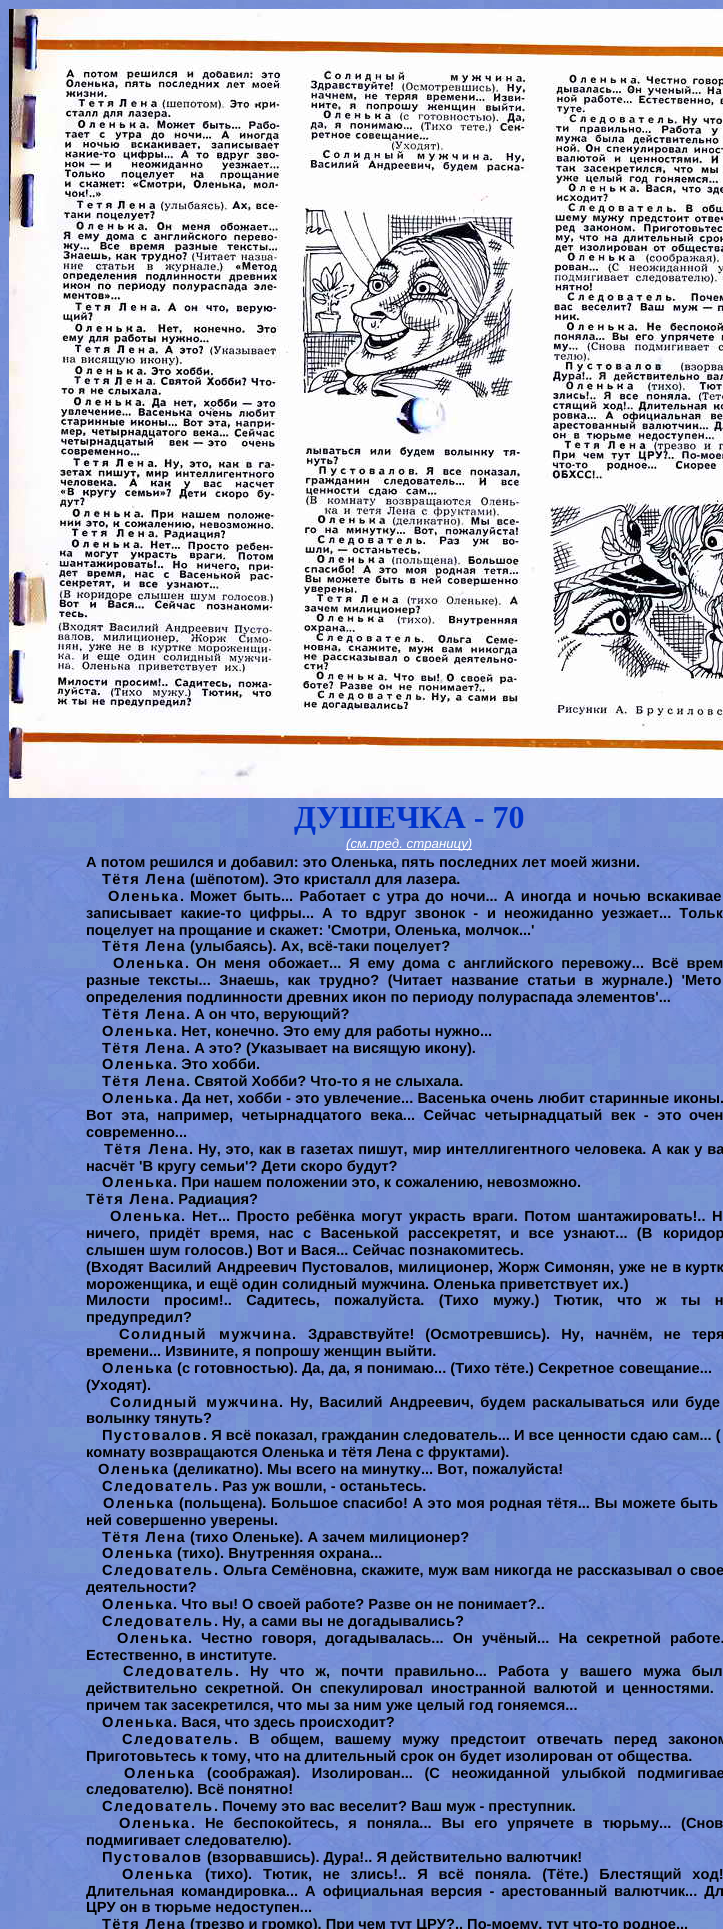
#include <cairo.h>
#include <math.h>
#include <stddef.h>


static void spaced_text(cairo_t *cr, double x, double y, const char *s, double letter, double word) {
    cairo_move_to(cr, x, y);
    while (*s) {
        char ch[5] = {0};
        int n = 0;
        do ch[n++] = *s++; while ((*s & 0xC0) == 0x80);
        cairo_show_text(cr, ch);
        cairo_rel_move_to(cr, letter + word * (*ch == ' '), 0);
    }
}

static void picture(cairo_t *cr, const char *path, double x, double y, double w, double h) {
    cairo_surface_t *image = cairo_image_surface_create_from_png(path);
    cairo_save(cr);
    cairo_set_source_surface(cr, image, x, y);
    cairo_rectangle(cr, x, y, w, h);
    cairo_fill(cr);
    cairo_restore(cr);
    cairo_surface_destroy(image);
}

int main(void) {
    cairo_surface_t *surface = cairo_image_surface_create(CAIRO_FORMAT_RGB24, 723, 1929);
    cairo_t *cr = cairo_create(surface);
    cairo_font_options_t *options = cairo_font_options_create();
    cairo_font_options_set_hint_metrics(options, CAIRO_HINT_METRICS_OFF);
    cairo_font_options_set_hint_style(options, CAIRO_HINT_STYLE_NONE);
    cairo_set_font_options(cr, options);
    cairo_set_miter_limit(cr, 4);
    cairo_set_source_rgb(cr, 1, 1, 1);
    cairo_paint(cr);
    picture(cr, "img1.png", 0, 0, 723, 1929);
    picture(cr, "img2.png", 9, 9, 714, 789);
    cairo_select_font_face(cr, "Liberation Serif", CAIRO_FONT_SLANT_NORMAL, CAIRO_FONT_WEIGHT_BOLD);
    cairo_set_font_size(cr, 32);
    cairo_set_source_rgb(cr, 0, 0.2, 0.8);
    cairo_move_to(cr, 294, 828);
    cairo_show_text(cr, "ДУШЕЧКА - 70");
    cairo_set_source_rgb(cr, 1, 1, 1);
    cairo_rectangle(cr, 346, 849, 126, 1);
    cairo_fill(cr);
    cairo_select_font_face(cr, "Liberation Sans", CAIRO_FONT_SLANT_ITALIC, CAIRO_FONT_WEIGHT_NORMAL);
    cairo_set_font_size(cr, 13.25);
    cairo_move_to(cr, 346, 848);
    cairo_show_text(cr, "(см.пред. страницу)");
    cairo_select_font_face(cr, "Liberation Sans", CAIRO_FONT_SLANT_NORMAL, CAIRO_FONT_WEIGHT_BOLD);
    cairo_set_font_size(cr, 14.65);
    cairo_set_source_rgb(cr, 0, 0, 0);
    cairo_move_to(cr, 86, 867);
    cairo_show_text(cr, "А потом решился и добавил: это Оленька, пять последних лет моей жизни.");
    spaced_text(cr, 102, 884, "Тётя Лена", 1.3, 0);
    cairo_move_to(cr, 190, 884);
    cairo_show_text(cr, "(шёпотом). Это кристалл для лазера.");
    spaced_text(cr, 108, 901, "Оленька", 1.3, 0);
    cairo_move_to(cr, 180, 901);
    cairo_show_text(cr, ".");
    spaced_text(cr, 190, 901, "Может быть... Работает с утра до ночи... А иногда и ночью вскакивае", 0, 2.25);
    spaced_text(cr, 86, 918, "записывает какие-то цифры... А", 0, 4);
    spaced_text(cr, 341, 918, "то вдруг звонок -", 0, 4);
    spaced_text(cr, 487, 918, "и неожиданно уезжает... Тольк", 0, 4);
    cairo_move_to(cr, 86, 935);
    cairo_show_text(cr, "поцелует на прощание и скажет: 'Смотри, Оленька, молчок...'");
    spaced_text(cr, 102, 951, "Тётя Лена", 1.3, 0);
    cairo_move_to(cr, 190, 951);
    cairo_show_text(cr, "(улыбаясь). Ах, всё-таки поцелует?");
    spaced_text(cr, 113, 968, "Оленька", 1.3, 0);
    cairo_move_to(cr, 185, 968);
    cairo_show_text(cr, ".");
    spaced_text(cr, 196, 968, "Он меня обожает... Я ему дома с английского перевожу... Всё врем", 0, 3.75);
    cairo_move_to(cr, 86, 985);
    cairo_show_text(cr, "разные");
    spaced_text(cr, 148, 985, "тексты... Знаешь, как трудно? (Читает название статьи в журнале.) 'Мето", 0, 4.5);
    cairo_move_to(cr, 86, 1002);
    cairo_show_text(cr, "определения подлинности древних икон по периоду полураспада элементов'...");
    spaced_text(cr, 102, 1019, "Тётя Лена", 1.3, 0);
    cairo_move_to(cr, 186, 1019);
    cairo_show_text(cr, ". А он что, верующий?");
    spaced_text(cr, 102, 1036, "Оленька", 1.3, 0);
    cairo_move_to(cr, 173, 1036);
    cairo_show_text(cr, ". Нет, конечно. Это ему для работы нужно...");
    spaced_text(cr, 102, 1053, "Тётя Лена", 1.3, 0);
    cairo_move_to(cr, 186, 1053);
    cairo_show_text(cr, ". А это? (Указывает на висящую икону).");
    spaced_text(cr, 102, 1069, "Оленька", 1.3, 0);
    cairo_move_to(cr, 173, 1069);
    cairo_show_text(cr, ". Это хобби.");
    spaced_text(cr, 102, 1086, "Тётя Лена", 1.3, 0);
    cairo_move_to(cr, 186, 1086);
    cairo_show_text(cr, ". Святой Хобби? Что-то я не слыхала.");
    spaced_text(cr, 102, 1103, "Оленька", 1.3, 0);
    cairo_move_to(cr, 174, 1103);
    cairo_show_text(cr, ".");
    spaced_text(cr, 182, 1103, "Да нет, хобби - это увлечение... Васенька очень любит старинные иконы.", 0, 0.25);
    spaced_text(cr, 86, 1120, "Вот эта, например, четырнадцатого века... Сейчас четырнадцатый век - это", 0, 4.5);
    cairo_move_to(cr, 689, 1120);
    cairo_show_text(cr, "очен");
    cairo_move_to(cr, 86, 1137);
    cairo_show_text(cr, "современно...");
    spaced_text(cr, 104, 1154, "Тётя Лена", 1.3, 1);
    cairo_move_to(cr, 189, 1154);
    cairo_show_text(cr, ".");
    spaced_text(cr, 198, 1154, "Ну, это, как в газетах пишут, мир интеллигентного человека. А как у ва", 0, 0.75);
    cairo_move_to(cr, 86, 1171);
    cairo_show_text(cr, "насчёт 'В кругу семьи'? Дети скоро будут?");
    spaced_text(cr, 102, 1187, "Оленька", 1.3, 0);
    cairo_move_to(cr, 173, 1187);
    cairo_show_text(cr, ". При нашем положении это, к сожалению, невозможно.");
    spaced_text(cr, 86, 1204, "Тётя Лена", 1.3, 0);
    cairo_move_to(cr, 170, 1204);
    cairo_show_text(cr, ". Радиация?");
    spaced_text(cr, 110, 1221, "Оленька", 1.3, 0);
    cairo_move_to(cr, 181, 1221);
    cairo_show_text(cr, ".");
    spaced_text(cr, 192, 1221, "Нет... Просто ребёнка могут украсть враги. Потом шантажировать!.. Н", 0, 2.5);
    spaced_text(cr, 86, 1238, "ничего, придёт время, нас с Васенькой рассекретят, и все узнают... (В", 0, 5.25);
    cairo_move_to(cr, 663, 1238);
    cairo_show_text(cr, "коридор");
    cairo_move_to(cr, 86, 1255);
    cairo_show_text(cr, "слышен шум голосов.) Вот и Вася... Сейчас познакомитесь.");
    spaced_text(cr, 86, 1272, "(Входят Василий Андреевич Пустовалов, милиционер, Жорж Симонян, уже не в", 0, 0.75);
    cairo_move_to(cr, 685, 1272);
    cairo_show_text(cr, "куртк");
    cairo_move_to(cr, 86, 1289);
    cairo_show_text(cr, "мороженщика, и ещё один солидный мужчина. Оленька приветствует их.)");
    spaced_text(cr, 86, 1305, "Милости просим!.. Садитесь, пожалуйста. (Тихо мужу.) Тютик, что ж ты н", 0, 10.25);
    cairo_move_to(cr, 86, 1322);
    cairo_show_text(cr, "предупредил?");
    spaced_text(cr, 119, 1339, "Солидный мужчина", 1.3, 6.75);
    cairo_move_to(cr, 292, 1339);
    cairo_show_text(cr, ".");
    spaced_text(cr, 308, 1339, "Здравствуйте! (Осмотревшись). Ну, начнём, не теря", 0, 7);
    cairo_move_to(cr, 86, 1356);
    cairo_show_text(cr, "времени... Извините, я попрошу женщин выйти.");
    spaced_text(cr, 102, 1373, "Оленька", 1.3, 0);
    cairo_move_to(cr, 177, 1373);
    cairo_show_text(cr, "(с готовностью). Да, да, я понимаю... (Тихо тёте.) Секретное");
    cairo_move_to(cr, 619, 1373);
    cairo_show_text(cr, "совещание...");
    cairo_move_to(cr, 86, 1390);
    cairo_show_text(cr, "(Уходят).");
    spaced_text(cr, 110, 1407, "Солидный мужчина", 1.3, 3);
    cairo_move_to(cr, 279, 1407);
    cairo_show_text(cr, ".");
    spaced_text(cr, 290, 1407, "Ну, Василий Андреевич, будем раскалываться или буде", 0, 2.5);
    cairo_move_to(cr, 86, 1423);
    cairo_show_text(cr, "волынку тянуть?");
    spaced_text(cr, 102, 1440, "Пустовалов", 1.3, 0);
    cairo_move_to(cr, 203, 1440);
    cairo_show_text(cr, ". Я всё показал, гражданин следователь... И все ценности сдаю сам... (");
    cairo_move_to(cr, 86, 1457);
    cairo_show_text(cr, "комнату возвращаются Оленька и тётя Лена с фруктами).");
    spaced_text(cr, 98, 1474, "Оленька", 1.3, 0);
    cairo_move_to(cr, 173, 1474);
    cairo_show_text(cr, "(деликатно). Мы всего на минутку... Вот, пожалуйста!");
    spaced_text(cr, 102, 1491, "Следователь", 1.3, 0);
    cairo_move_to(cr, 214, 1491);
    cairo_show_text(cr, ". Раз уж вошли, - останьтесь.");
    spaced_text(cr, 103, 1508, "Оленька", 1.3, 0);
    spaced_text(cr, 179, 1508, "(польщена). Большое спасибо! А это моя родная тётя... Вы можете быть", 0, 0.5);
    cairo_move_to(cr, 86, 1525);
    cairo_show_text(cr, "ней совершенно уверены.");
    spaced_text(cr, 102, 1542, "Тётя Лена", 1.3, 0);
    cairo_move_to(cr, 190, 1542);
    cairo_show_text(cr, "(тихо Оленьке). А зачем милиционер?");
    spaced_text(cr, 102, 1558, "Оленька", 1.3, 0);
    cairo_move_to(cr, 177, 1558);
    cairo_show_text(cr, "(тихо). Внутренняя охрана...");
    spaced_text(cr, 102, 1575, "Следователь", 1.3, 0);
    cairo_move_to(cr, 214, 1575);
    cairo_show_text(cr, ".");
    spaced_text(cr, 223, 1575, "Ольга Семёновна, скажите, муж вам никогда не рассказывал о свое", 0, 0.25);
    cairo_move_to(cr, 86, 1592);
    cairo_show_text(cr, "деятельности?");
    spaced_text(cr, 102, 1609, "Оленька", 1.3, 0);
    cairo_move_to(cr, 173, 1609);
    cairo_show_text(cr, ". Что вы! О своей работе? Разве он не понимает?..");
    spaced_text(cr, 102, 1626, "Следователь", 1.3, 0);
    cairo_move_to(cr, 214, 1626);
    cairo_show_text(cr, ". Ну, а сами вы не догадывались?");
    spaced_text(cr, 117, 1643, "Оленька", 1.3, 0);
    cairo_move_to(cr, 188, 1643);
    cairo_show_text(cr, ".");
    spaced_text(cr, 201, 1643, "Честно говоря, догадывалась... Он учёный... На секретной работе.", 0, 5);
    cairo_move_to(cr, 86, 1660);
    cairo_show_text(cr, "Естественно, в институте.");
    spaced_text(cr, 123, 1676, "Следователь", 1.3, 0);
    cairo_move_to(cr, 235, 1676);
    cairo_show_text(cr, ".");
    spaced_text(cr, 250, 1676, "Ну что ж, почти правильно... Работа у вашего мужа был", 0, 7);
    cairo_move_to(cr, 86, 1693);
    cairo_show_text(cr, "действительно");
    spaced_text(cr, 205, 1693, "секретной. Он спекулировал иностранной валютой и ценностями.", 0, 3.75);
    cairo_move_to(cr, 86, 1710);
    cairo_show_text(cr, "причем так засекретился, что мы за ним уже целый год гоняемся...");
    spaced_text(cr, 102, 1727, "Оленька", 1.3, 0);
    cairo_move_to(cr, 173, 1727);
    cairo_show_text(cr, ". Вася, что здесь происходит?");
    spaced_text(cr, 122, 1744, "Следователь", 1.3, 0);
    cairo_move_to(cr, 234, 1744);
    cairo_show_text(cr, ".");
    spaced_text(cr, 249, 1744, "В общем, вашему мужу предстоит отвечать перед законом", 0, 6.75);
    cairo_move_to(cr, 86, 1761);
    cairo_show_text(cr, "Приготовьтесь к тому, что на длительный срок он будет изолирован от общества.");
    spaced_text(cr, 124, 1778, "Оленька", 1.3, 0);
    spaced_text(cr, 207, 1778, "(соображая). Изолирован... (С неожиданной улыбкой подмигивае", 0, 7.5);
    cairo_move_to(cr, 86, 1794);
    cairo_show_text(cr, "следователю). Всё понятно!");
    spaced_text(cr, 102, 1811, "Следователь", 1.3, 0);
    cairo_move_to(cr, 214, 1811);
    cairo_show_text(cr, ". Почему это вас веселит? Ваш муж - преступник.");
    spaced_text(cr, 119, 1828, "Оленька", 1.3, 0);
    cairo_move_to(cr, 191, 1828);
    cairo_show_text(cr, ".");
    spaced_text(cr, 205, 1828, "Не беспокойтесь, я поняла... Вы его упрячете в тюрьму... (Снов", 0, 5.75);
    cairo_move_to(cr, 86, 1845);
    cairo_show_text(cr, "подмигивает следователю).");
    spaced_text(cr, 102, 1862, "Пустовалов", 1.3, 0);
    cairo_move_to(cr, 207, 1862);
    cairo_show_text(cr, "(взорвавшись). Дура!.. Я действительно валютчик!");
    spaced_text(cr, 122, 1879, "Оленька", 1.3, 0);
    spaced_text(cr, 205, 1879, "(тихо). Тютик, не злись!.. Я всё поняла. (Тёте.) Блестящий ход!", 0, 6.75);
    spaced_text(cr, 86, 1896, "Длительная командировка... А официальная версия - арестованный", 0, 3);
    spaced_text(cr, 614, 1896, "валютчик... Дл", 0, 3);
    cairo_move_to(cr, 86, 1912);
    cairo_show_text(cr, "ЦРУ он в тюрьме недоступен...");
    spaced_text(cr, 102, 1929, "Тётя Лена", 1.3, 0);
    cairo_move_to(cr, 190, 1929);
    cairo_show_text(cr, "(трезво и громко). При чем тут ЦРУ?.. По-моему, тут что-то родное...");
    cairo_surface_write_to_png(surface, "page.png");
    cairo_font_options_destroy(options);
    cairo_destroy(cr);
    cairo_surface_destroy(surface);
    return 0;
}
